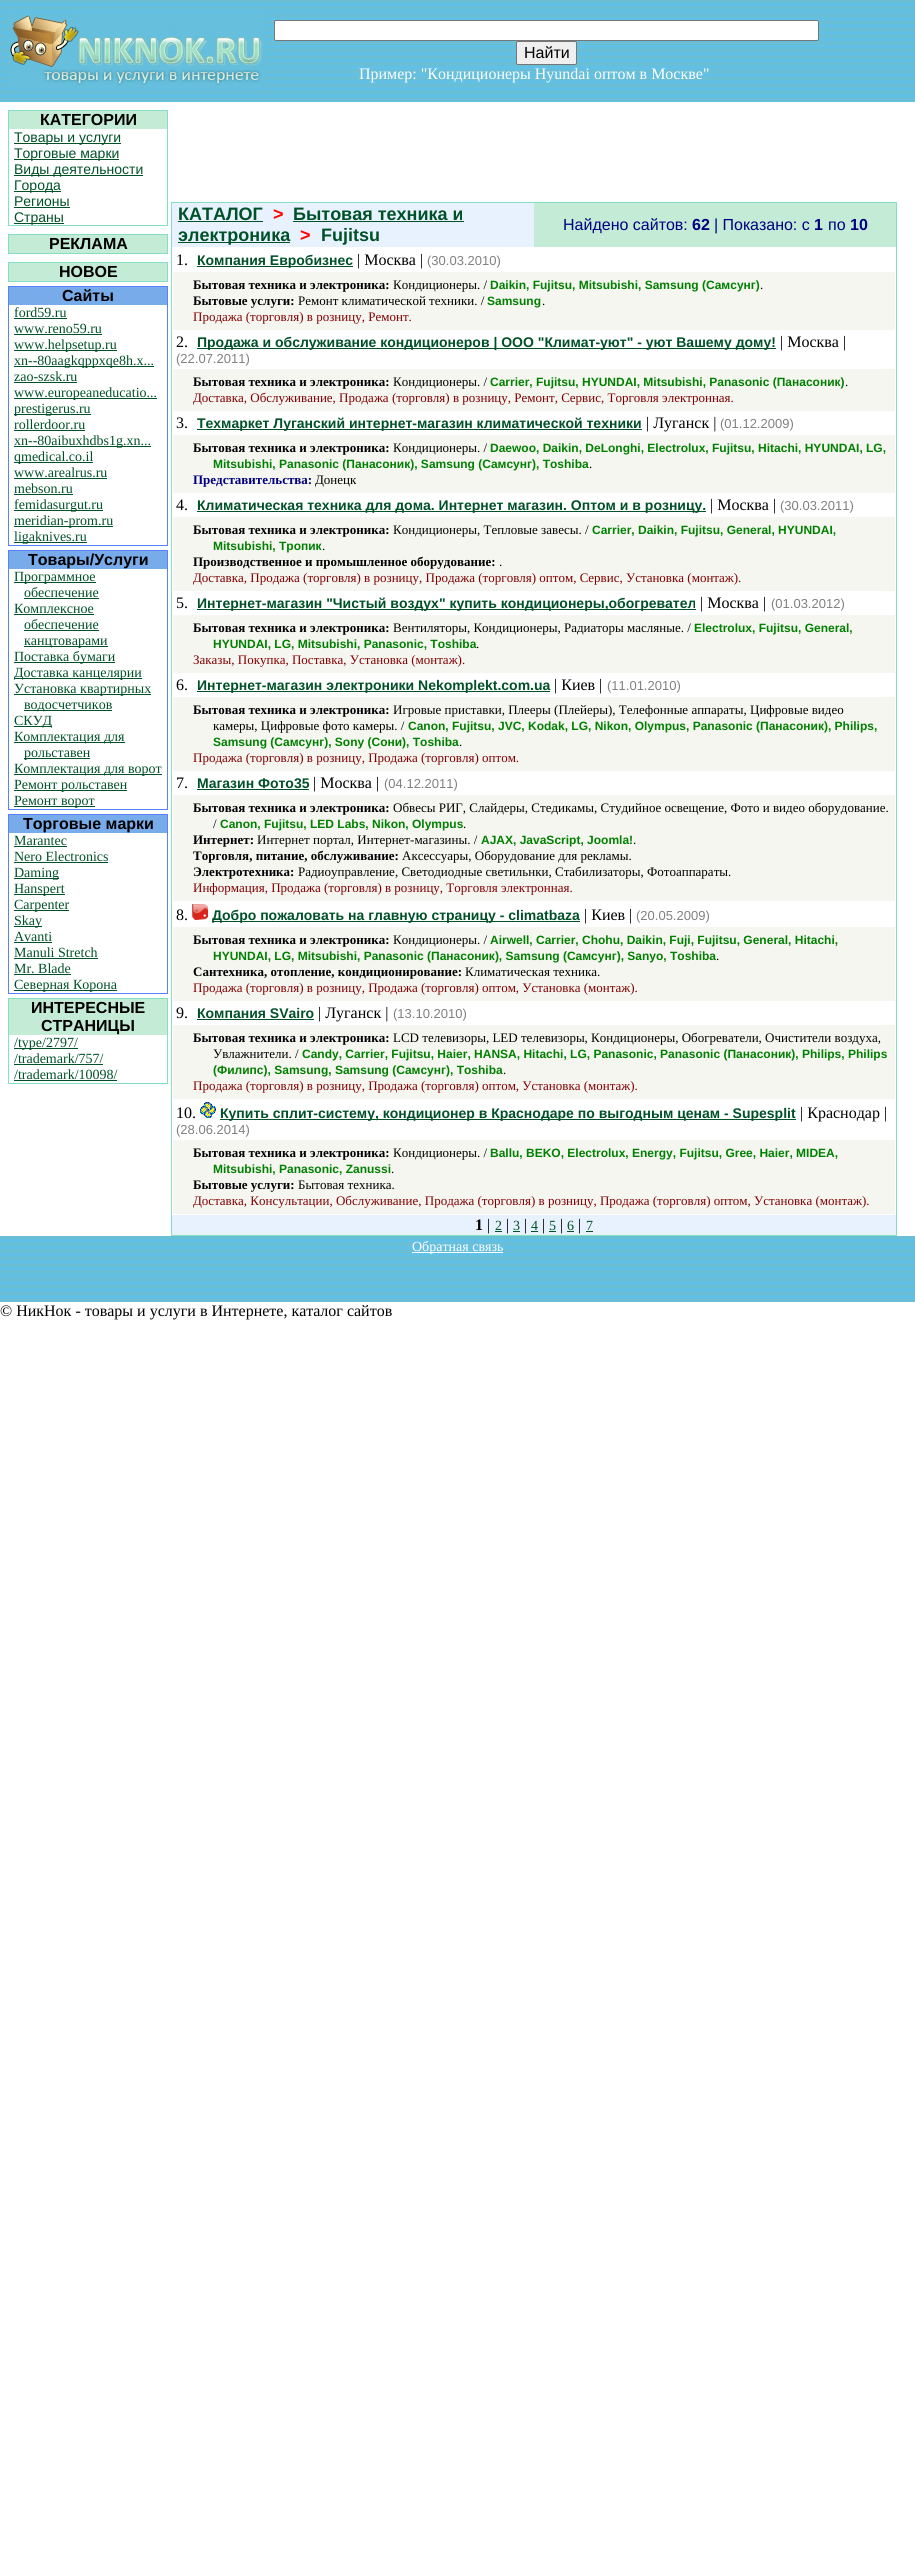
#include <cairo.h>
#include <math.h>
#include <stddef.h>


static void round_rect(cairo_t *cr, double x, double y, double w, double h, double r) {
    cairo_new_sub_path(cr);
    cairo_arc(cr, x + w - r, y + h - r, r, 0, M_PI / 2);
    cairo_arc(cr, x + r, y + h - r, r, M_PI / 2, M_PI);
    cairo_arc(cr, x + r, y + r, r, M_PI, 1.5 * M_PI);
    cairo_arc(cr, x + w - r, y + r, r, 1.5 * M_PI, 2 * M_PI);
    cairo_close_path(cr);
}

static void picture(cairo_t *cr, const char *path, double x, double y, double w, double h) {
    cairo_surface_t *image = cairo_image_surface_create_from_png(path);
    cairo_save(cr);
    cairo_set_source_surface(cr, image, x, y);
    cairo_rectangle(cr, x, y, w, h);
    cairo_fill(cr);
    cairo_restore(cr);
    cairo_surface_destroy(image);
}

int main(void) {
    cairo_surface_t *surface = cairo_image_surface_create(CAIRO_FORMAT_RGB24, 915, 2564);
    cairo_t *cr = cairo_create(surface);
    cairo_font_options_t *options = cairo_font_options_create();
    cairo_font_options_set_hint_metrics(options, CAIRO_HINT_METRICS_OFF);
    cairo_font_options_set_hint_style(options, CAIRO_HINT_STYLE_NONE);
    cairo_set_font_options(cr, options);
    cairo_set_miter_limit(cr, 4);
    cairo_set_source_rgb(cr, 1, 1, 1);
    cairo_paint(cr);
    picture(cr, "img1.png", 0, 0, 915, 102);
    picture(cr, "img2.png", 9, 13, 255, 76);
    cairo_set_source_rgb(cr, 1, 1, 1);
    round_rect(cr, 274.5, 20.5, 544, 20, 1.5);
    cairo_fill_preserve(cr);
    cairo_set_source_rgb(cr, 0.463, 0.463, 0.463);
    cairo_set_line_width(cr, 1);
    cairo_stroke(cr);
    cairo_set_source_rgb(cr, 0.937, 0.937, 0.937);
    round_rect(cr, 516.5, 41.5, 60, 23, 1.5);
    cairo_fill_preserve(cr);
    cairo_set_source_rgb(cr, 0.463, 0.463, 0.463);
    cairo_stroke(cr);
    cairo_select_font_face(cr, "Liberation Sans", CAIRO_FONT_SLANT_NORMAL, CAIRO_FONT_WEIGHT_NORMAL);
    cairo_set_font_size(cr, 16);
    cairo_set_source_rgb(cr, 0, 0, 0);
    cairo_move_to(cr, 524, 58);
    cairo_show_text(cr, "Найти");
    cairo_select_font_face(cr, "Liberation Serif", CAIRO_FONT_SLANT_NORMAL, CAIRO_FONT_WEIGHT_NORMAL);
    cairo_set_source_rgb(cr, 1, 1, 1);
    cairo_move_to(cr, 359, 79);
    cairo_show_text(cr, "Пример: \"Кондиционеры Hyundai оптом в Москве\"");
    cairo_rectangle(cr, 8.5, 110.5, 159, 115);
    cairo_set_source_rgb(cr, 0.522, 0.878, 0.761);
    cairo_stroke(cr);
    cairo_set_source_rgb(cr, 0.769, 0.918, 0.839);
    cairo_rectangle(cr, 9, 111, 158, 18);
    cairo_fill(cr);
    cairo_select_font_face(cr, "Liberation Sans", CAIRO_FONT_SLANT_NORMAL, CAIRO_FONT_WEIGHT_BOLD);
    cairo_set_source_rgb(cr, 0, 0, 0);
    cairo_move_to(cr, 40, 125);
    cairo_show_text(cr, "КАТЕГОРИИ");
    cairo_set_source_rgb(cr, 0, 0.318, 0.157);
    cairo_rectangle(cr, 14, 143, 107, 1);
    cairo_fill(cr);
    cairo_select_font_face(cr, "Liberation Sans", CAIRO_FONT_SLANT_NORMAL, CAIRO_FONT_WEIGHT_NORMAL);
    cairo_set_font_size(cr, 14);
    cairo_move_to(cr, 14, 142);
    cairo_show_text(cr, "Товары и услуги");
    cairo_rectangle(cr, 14, 159, 105, 1);
    cairo_fill(cr);
    cairo_move_to(cr, 14, 158);
    cairo_show_text(cr, "Торговые марки");
    cairo_rectangle(cr, 14, 175, 129, 1);
    cairo_fill(cr);
    cairo_move_to(cr, 14, 174);
    cairo_show_text(cr, "Виды деятельности");
    cairo_rectangle(cr, 14, 191, 47, 1);
    cairo_fill(cr);
    cairo_move_to(cr, 14, 190);
    cairo_show_text(cr, "Города");
    cairo_move_to(cr, 14, 206);
    cairo_show_text(cr, "Регионы");
    cairo_rectangle(cr, 14, 207, 56, 1);
    cairo_fill(cr);
    cairo_rectangle(cr, 14, 223, 50, 1);
    cairo_fill(cr);
    cairo_move_to(cr, 14, 222);
    cairo_show_text(cr, "Страны");
    cairo_rectangle(cr, 8.5, 234.5, 159, 19);
    cairo_set_source_rgb(cr, 0.522, 0.878, 0.761);
    cairo_stroke(cr);
    cairo_set_source_rgb(cr, 0.769, 0.918, 0.839);
    cairo_rectangle(cr, 9, 235, 158, 18);
    cairo_fill(cr);
    cairo_select_font_face(cr, "Liberation Sans", CAIRO_FONT_SLANT_NORMAL, CAIRO_FONT_WEIGHT_BOLD);
    cairo_set_font_size(cr, 16);
    cairo_set_source_rgb(cr, 0, 0, 0);
    cairo_move_to(cr, 49, 249);
    cairo_show_text(cr, "РЕКЛАМА");
    cairo_rectangle(cr, 8.5, 262.5, 159, 19);
    cairo_set_source_rgb(cr, 0.522, 0.878, 0.761);
    cairo_stroke(cr);
    cairo_set_source_rgb(cr, 0.769, 0.918, 0.839);
    cairo_rectangle(cr, 9, 263, 158, 18);
    cairo_fill(cr);
    cairo_set_source_rgb(cr, 0, 0, 0);
    cairo_move_to(cr, 59, 277);
    cairo_show_text(cr, "НОВОЕ");
    cairo_rectangle(cr, 8.5, 286.5, 159, 259);
    cairo_set_source_rgb(cr, 0.353, 0.502, 0.996);
    cairo_stroke(cr);
    cairo_set_source_rgb(cr, 0.471, 0.671, 0.914);
    cairo_rectangle(cr, 9, 287, 158, 18);
    cairo_fill(cr);
    cairo_set_source_rgb(cr, 0, 0, 0);
    cairo_move_to(cr, 62, 301);
    cairo_show_text(cr, "Сайты");
    cairo_select_font_face(cr, "Liberation Serif", CAIRO_FONT_SLANT_NORMAL, CAIRO_FONT_WEIGHT_NORMAL);
    cairo_set_font_size(cr, 14);
    cairo_set_source_rgb(cr, 0, 0.318, 0.157);
    cairo_move_to(cr, 14, 317);
    cairo_show_text(cr, "ford59.ru");
    cairo_rectangle(cr, 14, 318, 53, 1);
    cairo_fill(cr);
    cairo_move_to(cr, 14, 333);
    cairo_show_text(cr, "www.reno59.ru");
    cairo_rectangle(cr, 14, 334, 88, 1);
    cairo_fill(cr);
    cairo_rectangle(cr, 14, 350, 103, 1);
    cairo_fill(cr);
    cairo_move_to(cr, 14, 349);
    cairo_show_text(cr, "www.helpsetup.ru");
    cairo_rectangle(cr, 14, 366, 140, 1);
    cairo_fill(cr);
    cairo_move_to(cr, 14, 365);
    cairo_show_text(cr, "xn--80aagkqppxqe8h.x...");
    cairo_move_to(cr, 14, 381);
    cairo_show_text(cr, "zao-szsk.ru");
    cairo_rectangle(cr, 14, 382, 63, 1);
    cairo_fill(cr);
    cairo_rectangle(cr, 14, 398, 143, 1);
    cairo_fill(cr);
    cairo_move_to(cr, 14, 397);
    cairo_show_text(cr, "www.europeaneducatio...");
    cairo_rectangle(cr, 14, 414, 77, 1);
    cairo_fill(cr);
    cairo_move_to(cr, 14, 413);
    cairo_show_text(cr, "prestigerus.ru");
    cairo_move_to(cr, 14, 429);
    cairo_show_text(cr, "rollerdoor.ru");
    cairo_rectangle(cr, 14, 430, 71, 1);
    cairo_fill(cr);
    cairo_rectangle(cr, 14, 446, 137, 1);
    cairo_fill(cr);
    cairo_move_to(cr, 14, 445);
    cairo_show_text(cr, "xn--80aibuxhdbs1g.xn...");
    cairo_rectangle(cr, 14, 462, 79, 1);
    cairo_fill(cr);
    cairo_move_to(cr, 14, 461);
    cairo_show_text(cr, "qmedical.co.il");
    cairo_move_to(cr, 14, 477);
    cairo_show_text(cr, "www.arealrus.ru");
    cairo_rectangle(cr, 14, 478, 93, 1);
    cairo_fill(cr);
    cairo_move_to(cr, 14, 493);
    cairo_show_text(cr, "mebson.ru");
    cairo_rectangle(cr, 14, 494, 59, 1);
    cairo_fill(cr);
    cairo_rectangle(cr, 14, 510, 89, 1);
    cairo_fill(cr);
    cairo_move_to(cr, 14, 509);
    cairo_show_text(cr, "femidasurgut.ru");
    cairo_rectangle(cr, 14, 526, 99, 1);
    cairo_fill(cr);
    cairo_move_to(cr, 14, 525);
    cairo_show_text(cr, "meridian-prom.ru");
    cairo_rectangle(cr, 14, 542, 73, 1);
    cairo_fill(cr);
    cairo_move_to(cr, 14, 541);
    cairo_show_text(cr, "ligaknives.ru");
    cairo_rectangle(cr, 8.5, 550.5, 159, 259);
    cairo_set_source_rgb(cr, 0.353, 0.502, 0.996);
    cairo_stroke(cr);
    cairo_set_source_rgb(cr, 0.471, 0.671, 0.914);
    cairo_rectangle(cr, 9, 551, 158, 18);
    cairo_fill(cr);
    cairo_select_font_face(cr, "Liberation Sans", CAIRO_FONT_SLANT_NORMAL, CAIRO_FONT_WEIGHT_BOLD);
    cairo_set_font_size(cr, 16);
    cairo_set_source_rgb(cr, 0, 0, 0);
    cairo_move_to(cr, 28, 565);
    cairo_show_text(cr, "Товары/Услуги");
    cairo_set_source_rgb(cr, 0, 0.318, 0.157);
    cairo_rectangle(cr, 14, 582, 82, 1);
    cairo_fill(cr);
    cairo_select_font_face(cr, "Liberation Serif", CAIRO_FONT_SLANT_NORMAL, CAIRO_FONT_WEIGHT_NORMAL);
    cairo_set_font_size(cr, 14);
    cairo_move_to(cr, 14, 581);
    cairo_show_text(cr, "Программное");
    cairo_move_to(cr, 24, 597);
    cairo_show_text(cr, "обеспечение");
    cairo_rectangle(cr, 24, 598, 75, 1);
    cairo_fill(cr);
    cairo_move_to(cr, 14, 613);
    cairo_show_text(cr, "Комплексное");
    cairo_rectangle(cr, 14, 614, 80, 1);
    cairo_fill(cr);
    cairo_move_to(cr, 24, 629);
    cairo_show_text(cr, "обеспечение");
    cairo_rectangle(cr, 24, 630, 75, 1);
    cairo_fill(cr);
    cairo_rectangle(cr, 24, 646, 84, 1);
    cairo_fill(cr);
    cairo_move_to(cr, 24, 645);
    cairo_show_text(cr, "канцтоварами");
    cairo_rectangle(cr, 14, 662, 101, 1);
    cairo_fill(cr);
    cairo_move_to(cr, 14, 661);
    cairo_show_text(cr, "Поставка бумаги");
    cairo_rectangle(cr, 14, 678, 128, 1);
    cairo_fill(cr);
    cairo_move_to(cr, 14, 677);
    cairo_show_text(cr, "Доставка канцелярии");
    cairo_rectangle(cr, 14, 694, 137, 1);
    cairo_fill(cr);
    cairo_move_to(cr, 14, 693);
    cairo_show_text(cr, "Установка квартирных");
    cairo_rectangle(cr, 24, 710, 88, 1);
    cairo_fill(cr);
    cairo_move_to(cr, 24, 709);
    cairo_show_text(cr, "водосчетчиков");
    cairo_rectangle(cr, 14, 726, 38, 1);
    cairo_fill(cr);
    cairo_move_to(cr, 14, 725);
    cairo_show_text(cr, "СКУД");
    cairo_rectangle(cr, 14, 742, 111, 1);
    cairo_fill(cr);
    cairo_move_to(cr, 14, 741);
    cairo_show_text(cr, "Комплектация для");
    cairo_rectangle(cr, 24, 758, 66, 1);
    cairo_fill(cr);
    cairo_move_to(cr, 24, 757);
    cairo_show_text(cr, "рольставен");
    cairo_rectangle(cr, 14, 774, 148, 1);
    cairo_fill(cr);
    cairo_move_to(cr, 14, 773);
    cairo_show_text(cr, "Комплектация для ворот");
    cairo_rectangle(cr, 14, 790, 113, 1);
    cairo_fill(cr);
    cairo_move_to(cr, 14, 789);
    cairo_show_text(cr, "Ремонт рольставен");
    cairo_rectangle(cr, 14, 806, 81, 1);
    cairo_fill(cr);
    cairo_move_to(cr, 14, 805);
    cairo_show_text(cr, "Ремонт ворот");
    cairo_rectangle(cr, 8.5, 814.5, 159, 179);
    cairo_set_source_rgb(cr, 0.353, 0.502, 0.996);
    cairo_stroke(cr);
    cairo_set_source_rgb(cr, 0.471, 0.671, 0.914);
    cairo_rectangle(cr, 9, 815, 158, 18);
    cairo_fill(cr);
    cairo_select_font_face(cr, "Liberation Sans", CAIRO_FONT_SLANT_NORMAL, CAIRO_FONT_WEIGHT_BOLD);
    cairo_set_font_size(cr, 16);
    cairo_set_source_rgb(cr, 0, 0, 0);
    cairo_move_to(cr, 23, 829);
    cairo_show_text(cr, "Торговые марки");
    cairo_select_font_face(cr, "Liberation Serif", CAIRO_FONT_SLANT_NORMAL, CAIRO_FONT_WEIGHT_NORMAL);
    cairo_set_font_size(cr, 14);
    cairo_set_source_rgb(cr, 0, 0.318, 0.157);
    cairo_move_to(cr, 14, 845);
    cairo_show_text(cr, "Marantec");
    cairo_rectangle(cr, 14, 846, 53, 1);
    cairo_fill(cr);
    cairo_move_to(cr, 14, 861);
    cairo_show_text(cr, "Nero Electronics");
    cairo_rectangle(cr, 14, 862, 94, 1);
    cairo_fill(cr);
    cairo_rectangle(cr, 14, 878, 45, 1);
    cairo_fill(cr);
    cairo_move_to(cr, 14, 877);
    cairo_show_text(cr, "Daming");
    cairo_rectangle(cr, 14, 894, 51, 1);
    cairo_fill(cr);
    cairo_move_to(cr, 14, 893);
    cairo_show_text(cr, "Hanspert");
    cairo_rectangle(cr, 14, 910, 55, 1);
    cairo_fill(cr);
    cairo_move_to(cr, 14, 909);
    cairo_show_text(cr, "Carpenter");
    cairo_rectangle(cr, 14, 926, 28, 1);
    cairo_fill(cr);
    cairo_move_to(cr, 14, 925);
    cairo_show_text(cr, "Skay");
    cairo_move_to(cr, 14, 941);
    cairo_show_text(cr, "Avanti");
    cairo_rectangle(cr, 14, 942, 38, 1);
    cairo_fill(cr);
    cairo_move_to(cr, 14, 957);
    cairo_show_text(cr, "Manuli Stretch");
    cairo_rectangle(cr, 14, 958, 84, 1);
    cairo_fill(cr);
    cairo_move_to(cr, 14, 973);
    cairo_show_text(cr, "Mr. Blade");
    cairo_rectangle(cr, 14, 974, 57, 1);
    cairo_fill(cr);
    cairo_rectangle(cr, 14, 990, 103, 1);
    cairo_fill(cr);
    cairo_move_to(cr, 14, 989);
    cairo_show_text(cr, "Северная Корона");
    cairo_rectangle(cr, 8.5, 998.5, 159, 85);
    cairo_set_source_rgb(cr, 0.522, 0.878, 0.761);
    cairo_stroke(cr);
    cairo_set_source_rgb(cr, 0.769, 0.918, 0.839);
    cairo_rectangle(cr, 9, 999, 158, 36);
    cairo_fill(cr);
    cairo_select_font_face(cr, "Liberation Sans", CAIRO_FONT_SLANT_NORMAL, CAIRO_FONT_WEIGHT_BOLD);
    cairo_set_font_size(cr, 16);
    cairo_set_source_rgb(cr, 0, 0, 0);
    cairo_move_to(cr, 31, 1013);
    cairo_show_text(cr, "ИНТЕРЕСНЫЕ");
    cairo_move_to(cr, 41, 1031);
    cairo_show_text(cr, "СТРАНИЦЫ");
    cairo_set_source_rgb(cr, 0, 0.318, 0.157);
    cairo_rectangle(cr, 14, 1048, 64, 1);
    cairo_fill(cr);
    cairo_select_font_face(cr, "Liberation Serif", CAIRO_FONT_SLANT_NORMAL, CAIRO_FONT_WEIGHT_NORMAL);
    cairo_set_font_size(cr, 14);
    cairo_move_to(cr, 14, 1047);
    cairo_show_text(cr, "/type/2797/");
    cairo_move_to(cr, 14, 1063);
    cairo_show_text(cr, "/trademark/757/");
    cairo_rectangle(cr, 14, 1064, 89, 1);
    cairo_fill(cr);
    cairo_move_to(cr, 14, 1079);
    cairo_show_text(cr, "/trademark/10098/");
    cairo_rectangle(cr, 14, 1080, 103, 1);
    cairo_fill(cr);
    cairo_set_source_rgb(cr, 0.91, 0.949, 1);
    cairo_rectangle(cr, 171.5, 202.5, 725, 1033);
    cairo_fill_preserve(cr);
    cairo_set_source_rgb(cr, 0.522, 0.878, 0.761);
    cairo_stroke(cr);
    cairo_select_font_face(cr, "Liberation Sans", CAIRO_FONT_SLANT_NORMAL, CAIRO_FONT_WEIGHT_BOLD);
    cairo_set_font_size(cr, 18);
    cairo_set_source_rgb(cr, 0, 0.318, 0.157);
    cairo_move_to(cr, 178, 220);
    cairo_show_text(cr, "КАТАЛОГ");
    cairo_rectangle(cr, 178, 221, 85, 1);
    cairo_fill(cr);
    cairo_set_source_rgb(cr, 1, 0, 0);
    cairo_move_to(cr, 273, 220);
    cairo_show_text(cr, ">");
    cairo_set_source_rgb(cr, 0, 0.318, 0.157);
    cairo_move_to(cr, 293, 220);
    cairo_show_text(cr, "Бытовая техника и");
    cairo_rectangle(cr, 293, 221, 171, 1);
    cairo_fill(cr);
    cairo_rectangle(cr, 178, 242, 112, 1);
    cairo_fill(cr);
    cairo_move_to(cr, 178, 241);
    cairo_show_text(cr, "электроника");
    cairo_set_source_rgb(cr, 1, 0, 0);
    cairo_move_to(cr, 300, 241);
    cairo_show_text(cr, ">");
    cairo_set_source_rgb(cr, 0, 0.318, 0.157);
    cairo_move_to(cr, 321, 241);
    cairo_show_text(cr, "Fujitsu");
    cairo_set_source_rgb(cr, 0.769, 0.918, 0.839);
    cairo_rectangle(cr, 534, 203, 362, 44);
    cairo_fill(cr);
    cairo_select_font_face(cr, "Liberation Sans", CAIRO_FONT_SLANT_NORMAL, CAIRO_FONT_WEIGHT_NORMAL);
    cairo_set_font_size(cr, 16);
    cairo_set_source_rgb(cr, 0, 0, 0.502);
    cairo_move_to(cr, 563, 230);
    cairo_show_text(cr, "Найдено сайтов:");
    cairo_select_font_face(cr, "Liberation Sans", CAIRO_FONT_SLANT_NORMAL, CAIRO_FONT_WEIGHT_BOLD);
    cairo_move_to(cr, 692, 230);
    cairo_show_text(cr, "62");
    cairo_select_font_face(cr, "Liberation Sans", CAIRO_FONT_SLANT_NORMAL, CAIRO_FONT_WEIGHT_NORMAL);
    cairo_move_to(cr, 714, 230);
    cairo_show_text(cr, "| Показано: c");
    cairo_select_font_face(cr, "Liberation Sans", CAIRO_FONT_SLANT_NORMAL, CAIRO_FONT_WEIGHT_BOLD);
    cairo_move_to(cr, 814, 230);
    cairo_show_text(cr, "1");
    cairo_select_font_face(cr, "Liberation Sans", CAIRO_FONT_SLANT_NORMAL, CAIRO_FONT_WEIGHT_NORMAL);
    cairo_move_to(cr, 828, 230);
    cairo_show_text(cr, "по");
    cairo_select_font_face(cr, "Liberation Sans", CAIRO_FONT_SLANT_NORMAL, CAIRO_FONT_WEIGHT_BOLD);
    cairo_move_to(cr, 850, 230);
    cairo_show_text(cr, "10");
    cairo_set_source_rgb(cr, 1, 1, 1);
    cairo_rectangle(cr, 172, 247, 724, 968);
    cairo_fill(cr);
    cairo_select_font_face(cr, "Liberation Serif", CAIRO_FONT_SLANT_NORMAL, CAIRO_FONT_WEIGHT_NORMAL);
    cairo_set_source_rgb(cr, 0, 0, 0);
    cairo_move_to(cr, 176, 265);
    cairo_show_text(cr, "1.");
    cairo_set_source_rgb(cr, 0, 0.318, 0.157);
    cairo_rectangle(cr, 197, 266, 156, 1);
    cairo_fill(cr);
    cairo_select_font_face(cr, "Liberation Sans", CAIRO_FONT_SLANT_NORMAL, CAIRO_FONT_WEIGHT_BOLD);
    cairo_set_font_size(cr, 14);
    cairo_move_to(cr, 197, 265);
    cairo_show_text(cr, "Компания Евробизнес");
    cairo_select_font_face(cr, "Liberation Serif", CAIRO_FONT_SLANT_NORMAL, CAIRO_FONT_WEIGHT_NORMAL);
    cairo_set_font_size(cr, 16);
    cairo_set_source_rgb(cr, 0, 0, 0);
    cairo_move_to(cr, 357, 265);
    cairo_show_text(cr, "| Москва |");
    cairo_select_font_face(cr, "Liberation Sans", CAIRO_FONT_SLANT_NORMAL, CAIRO_FONT_WEIGHT_NORMAL);
    cairo_set_font_size(cr, 13);
    cairo_set_source_rgb(cr, 0.502, 0.502, 0.502);
    cairo_move_to(cr, 427, 265);
    cairo_show_text(cr, "(30.03.2010)");
    cairo_set_source_rgb(cr, 0.961, 0.961, 0.945);
    cairo_rectangle(cr, 173, 272, 722, 58);
    cairo_fill(cr);
    cairo_select_font_face(cr, "Liberation Serif", CAIRO_FONT_SLANT_NORMAL, CAIRO_FONT_WEIGHT_BOLD);
    cairo_set_source_rgb(cr, 0, 0, 0);
    cairo_move_to(cr, 193, 289);
    cairo_show_text(cr, "Бытовая техника и электроника:");
    cairo_select_font_face(cr, "Liberation Serif", CAIRO_FONT_SLANT_NORMAL, CAIRO_FONT_WEIGHT_NORMAL);
    cairo_move_to(cr, 393, 289);
    cairo_show_text(cr, "Кондиционеры. /");
    cairo_select_font_face(cr, "Liberation Sans", CAIRO_FONT_SLANT_NORMAL, CAIRO_FONT_WEIGHT_BOLD);
    cairo_set_font_size(cr, 12);
    cairo_set_source_rgb(cr, 0, 0.502, 0);
    cairo_move_to(cr, 490, 289);
    cairo_show_text(cr, "Daikin, Fujitsu, Mitsubishi, Samsung (Самсунг)");
    cairo_select_font_face(cr, "Liberation Serif", CAIRO_FONT_SLANT_NORMAL, CAIRO_FONT_WEIGHT_NORMAL);
    cairo_set_font_size(cr, 13);
    cairo_set_source_rgb(cr, 0, 0, 0);
    cairo_move_to(cr, 760, 289);
    cairo_show_text(cr, ".");
    cairo_select_font_face(cr, "Liberation Serif", CAIRO_FONT_SLANT_NORMAL, CAIRO_FONT_WEIGHT_BOLD);
    cairo_move_to(cr, 193, 305);
    cairo_show_text(cr, "Бытовые услуги:");
    cairo_select_font_face(cr, "Liberation Serif", CAIRO_FONT_SLANT_NORMAL, CAIRO_FONT_WEIGHT_NORMAL);
    cairo_move_to(cr, 298, 305);
    cairo_show_text(cr, "Ремонт климатической техники. /");
    cairo_select_font_face(cr, "Liberation Sans", CAIRO_FONT_SLANT_NORMAL, CAIRO_FONT_WEIGHT_BOLD);
    cairo_set_font_size(cr, 12);
    cairo_set_source_rgb(cr, 0, 0.502, 0);
    cairo_move_to(cr, 487, 305);
    cairo_show_text(cr, "Samsung");
    cairo_select_font_face(cr, "Liberation Serif", CAIRO_FONT_SLANT_NORMAL, CAIRO_FONT_WEIGHT_NORMAL);
    cairo_set_font_size(cr, 13);
    cairo_set_source_rgb(cr, 0, 0, 0);
    cairo_move_to(cr, 542, 305);
    cairo_show_text(cr, ".");
    cairo_set_source_rgb(cr, 0.502, 0, 0);
    cairo_move_to(cr, 193, 321);
    cairo_show_text(cr, "Продажа (торговля) в розницу, Ремонт.");
    cairo_set_font_size(cr, 16);
    cairo_set_source_rgb(cr, 0, 0, 0);
    cairo_move_to(cr, 176, 347);
    cairo_show_text(cr, "2.");
    cairo_set_source_rgb(cr, 0, 0.318, 0.157);
    cairo_rectangle(cr, 197, 348, 579, 1);
    cairo_fill(cr);
    cairo_select_font_face(cr, "Liberation Sans", CAIRO_FONT_SLANT_NORMAL, CAIRO_FONT_WEIGHT_BOLD);
    cairo_set_font_size(cr, 14);
    cairo_move_to(cr, 197, 347);
    cairo_show_text(cr, "Продажа и обслуживание кондиционеров | ООО \"Климат-уют\" - уют Вашему дому!");
    cairo_select_font_face(cr, "Liberation Serif", CAIRO_FONT_SLANT_NORMAL, CAIRO_FONT_WEIGHT_NORMAL);
    cairo_set_font_size(cr, 16);
    cairo_set_source_rgb(cr, 0, 0, 0);
    cairo_move_to(cr, 780, 347);
    cairo_show_text(cr, "| Москва |");
    cairo_select_font_face(cr, "Liberation Sans", CAIRO_FONT_SLANT_NORMAL, CAIRO_FONT_WEIGHT_NORMAL);
    cairo_set_font_size(cr, 13);
    cairo_set_source_rgb(cr, 0.502, 0.502, 0.502);
    cairo_move_to(cr, 176, 363);
    cairo_show_text(cr, "(22.07.2011)");
    cairo_set_source_rgb(cr, 0.961, 0.961, 0.945);
    cairo_rectangle(cr, 173, 369, 722, 42);
    cairo_fill(cr);
    cairo_select_font_face(cr, "Liberation Serif", CAIRO_FONT_SLANT_NORMAL, CAIRO_FONT_WEIGHT_BOLD);
    cairo_set_source_rgb(cr, 0, 0, 0);
    cairo_move_to(cr, 193, 386);
    cairo_show_text(cr, "Бытовая техника и электроника:");
    cairo_select_font_face(cr, "Liberation Serif", CAIRO_FONT_SLANT_NORMAL, CAIRO_FONT_WEIGHT_NORMAL);
    cairo_move_to(cr, 393, 386);
    cairo_show_text(cr, "Кондиционеры. /");
    cairo_select_font_face(cr, "Liberation Sans", CAIRO_FONT_SLANT_NORMAL, CAIRO_FONT_WEIGHT_BOLD);
    cairo_set_font_size(cr, 12);
    cairo_set_source_rgb(cr, 0, 0.502, 0);
    cairo_move_to(cr, 490, 386);
    cairo_show_text(cr, "Carrier, Fujitsu, HYUNDAI, Mitsubishi, Panasonic (Панасоник)");
    cairo_select_font_face(cr, "Liberation Serif", CAIRO_FONT_SLANT_NORMAL, CAIRO_FONT_WEIGHT_NORMAL);
    cairo_set_font_size(cr, 13);
    cairo_set_source_rgb(cr, 0, 0, 0);
    cairo_move_to(cr, 845, 386);
    cairo_show_text(cr, ".");
    cairo_set_source_rgb(cr, 0.502, 0, 0);
    cairo_move_to(cr, 193, 402);
    cairo_show_text(cr, "Доставка, Обслуживание, Продажа (торговля) в розницу, Ремонт, Сервис, Торговля электронная.");
    cairo_set_font_size(cr, 16);
    cairo_set_source_rgb(cr, 0, 0, 0);
    cairo_move_to(cr, 176, 428);
    cairo_show_text(cr, "3.");
    cairo_set_source_rgb(cr, 0, 0.318, 0.157);
    cairo_rectangle(cr, 197, 429, 445, 1);
    cairo_fill(cr);
    cairo_select_font_face(cr, "Liberation Sans", CAIRO_FONT_SLANT_NORMAL, CAIRO_FONT_WEIGHT_BOLD);
    cairo_set_font_size(cr, 14);
    cairo_move_to(cr, 197, 428);
    cairo_show_text(cr, "Техмаркет Луганский интернет-магазин климатической техники");
    cairo_select_font_face(cr, "Liberation Serif", CAIRO_FONT_SLANT_NORMAL, CAIRO_FONT_WEIGHT_NORMAL);
    cairo_set_font_size(cr, 16);
    cairo_set_source_rgb(cr, 0, 0, 0);
    cairo_move_to(cr, 646, 428);
    cairo_show_text(cr, "| Луганск |");
    cairo_select_font_face(cr, "Liberation Sans", CAIRO_FONT_SLANT_NORMAL, CAIRO_FONT_WEIGHT_NORMAL);
    cairo_set_font_size(cr, 13);
    cairo_set_source_rgb(cr, 0.502, 0.502, 0.502);
    cairo_move_to(cr, 720, 428);
    cairo_show_text(cr, "(01.12.2009)");
    cairo_set_source_rgb(cr, 0.961, 0.961, 0.945);
    cairo_rectangle(cr, 173, 435, 722, 58);
    cairo_fill(cr);
    cairo_select_font_face(cr, "Liberation Serif", CAIRO_FONT_SLANT_NORMAL, CAIRO_FONT_WEIGHT_BOLD);
    cairo_set_source_rgb(cr, 0, 0, 0);
    cairo_move_to(cr, 193, 452);
    cairo_show_text(cr, "Бытовая техника и электроника:");
    cairo_select_font_face(cr, "Liberation Serif", CAIRO_FONT_SLANT_NORMAL, CAIRO_FONT_WEIGHT_NORMAL);
    cairo_move_to(cr, 393, 452);
    cairo_show_text(cr, "Кондиционеры. /");
    cairo_select_font_face(cr, "Liberation Sans", CAIRO_FONT_SLANT_NORMAL, CAIRO_FONT_WEIGHT_BOLD);
    cairo_set_font_size(cr, 12);
    cairo_set_source_rgb(cr, 0, 0.502, 0);
    cairo_move_to(cr, 490, 452);
    cairo_show_text(cr, "Daewoo, Daikin, DeLonghi, Electrolux, Fujitsu, Hitachi, HYUNDAI, LG,");
    cairo_move_to(cr, 213, 468);
    cairo_show_text(cr, "Mitsubishi, Panasonic (Панасоник), Samsung (Самсунг), Toshiba");
    cairo_select_font_face(cr, "Liberation Serif", CAIRO_FONT_SLANT_NORMAL, CAIRO_FONT_WEIGHT_NORMAL);
    cairo_set_font_size(cr, 13);
    cairo_set_source_rgb(cr, 0, 0, 0);
    cairo_move_to(cr, 589, 468);
    cairo_show_text(cr, ".");
    cairo_select_font_face(cr, "Liberation Serif", CAIRO_FONT_SLANT_NORMAL, CAIRO_FONT_WEIGHT_BOLD);
    cairo_set_source_rgb(cr, 0, 0, 0.502);
    cairo_move_to(cr, 193, 484);
    cairo_show_text(cr, "Представительства:");
    cairo_select_font_face(cr, "Liberation Serif", CAIRO_FONT_SLANT_NORMAL, CAIRO_FONT_WEIGHT_NORMAL);
    cairo_set_source_rgb(cr, 0, 0, 0);
    cairo_move_to(cr, 315, 484);
    cairo_show_text(cr, "Донецк");
    cairo_set_font_size(cr, 16);
    cairo_move_to(cr, 176, 510);
    cairo_show_text(cr, "4.");
    cairo_set_source_rgb(cr, 0, 0.318, 0.157);
    cairo_rectangle(cr, 197, 511, 509, 1);
    cairo_fill(cr);
    cairo_select_font_face(cr, "Liberation Sans", CAIRO_FONT_SLANT_NORMAL, CAIRO_FONT_WEIGHT_BOLD);
    cairo_set_font_size(cr, 14);
    cairo_move_to(cr, 197, 510);
    cairo_show_text(cr, "Климатическая техника для дома. Интернет магазин. Оптом и в розницу.");
    cairo_select_font_face(cr, "Liberation Serif", CAIRO_FONT_SLANT_NORMAL, CAIRO_FONT_WEIGHT_NORMAL);
    cairo_set_font_size(cr, 16);
    cairo_set_source_rgb(cr, 0, 0, 0);
    cairo_move_to(cr, 710, 510);
    cairo_show_text(cr, "| Москва |");
    cairo_select_font_face(cr, "Liberation Sans", CAIRO_FONT_SLANT_NORMAL, CAIRO_FONT_WEIGHT_NORMAL);
    cairo_set_font_size(cr, 13);
    cairo_set_source_rgb(cr, 0.502, 0.502, 0.502);
    cairo_move_to(cr, 780, 510);
    cairo_show_text(cr, "(30.03.2011)");
    cairo_set_source_rgb(cr, 0.961, 0.961, 0.945);
    cairo_rectangle(cr, 173, 517, 722, 74);
    cairo_fill(cr);
    cairo_select_font_face(cr, "Liberation Serif", CAIRO_FONT_SLANT_NORMAL, CAIRO_FONT_WEIGHT_BOLD);
    cairo_set_source_rgb(cr, 0, 0, 0);
    cairo_move_to(cr, 193, 534);
    cairo_show_text(cr, "Бытовая техника и электроника:");
    cairo_select_font_face(cr, "Liberation Serif", CAIRO_FONT_SLANT_NORMAL, CAIRO_FONT_WEIGHT_NORMAL);
    cairo_move_to(cr, 393, 534);
    cairo_show_text(cr, "Кондиционеры, Тепловые завесы. /");
    cairo_select_font_face(cr, "Liberation Sans", CAIRO_FONT_SLANT_NORMAL, CAIRO_FONT_WEIGHT_BOLD);
    cairo_set_font_size(cr, 12);
    cairo_set_source_rgb(cr, 0, 0.502, 0);
    cairo_move_to(cr, 592, 534);
    cairo_show_text(cr, "Carrier, Daikin, Fujitsu, General, HYUNDAI,");
    cairo_move_to(cr, 213, 550);
    cairo_show_text(cr, "Mitsubishi, Тропик");
    cairo_select_font_face(cr, "Liberation Serif", CAIRO_FONT_SLANT_NORMAL, CAIRO_FONT_WEIGHT_NORMAL);
    cairo_set_font_size(cr, 13);
    cairo_set_source_rgb(cr, 0, 0, 0);
    cairo_move_to(cr, 322, 550);
    cairo_show_text(cr, ".");
    cairo_select_font_face(cr, "Liberation Serif", CAIRO_FONT_SLANT_NORMAL, CAIRO_FONT_WEIGHT_BOLD);
    cairo_move_to(cr, 193, 566);
    cairo_show_text(cr, "Производственное и промышленное оборудование:");
    cairo_select_font_face(cr, "Liberation Serif", CAIRO_FONT_SLANT_NORMAL, CAIRO_FONT_WEIGHT_NORMAL);
    cairo_move_to(cr, 499, 566);
    cairo_show_text(cr, ".");
    cairo_set_source_rgb(cr, 0.502, 0, 0);
    cairo_move_to(cr, 193, 582);
    cairo_show_text(cr, "Доставка, Продажа (торговля) в розницу, Продажа (торговля) оптом, Сервис, Установка (монтаж).");
    cairo_set_font_size(cr, 16);
    cairo_set_source_rgb(cr, 0, 0, 0);
    cairo_move_to(cr, 176, 608);
    cairo_show_text(cr, "5.");
    cairo_set_source_rgb(cr, 0, 0.318, 0.157);
    cairo_rectangle(cr, 197, 609, 499, 1);
    cairo_fill(cr);
    cairo_select_font_face(cr, "Liberation Sans", CAIRO_FONT_SLANT_NORMAL, CAIRO_FONT_WEIGHT_BOLD);
    cairo_set_font_size(cr, 14);
    cairo_move_to(cr, 197, 608);
    cairo_show_text(cr, "Интернет-магазин \"Чистый воздух\" купить кондиционеры,обогревател");
    cairo_select_font_face(cr, "Liberation Serif", CAIRO_FONT_SLANT_NORMAL, CAIRO_FONT_WEIGHT_NORMAL);
    cairo_set_font_size(cr, 16);
    cairo_set_source_rgb(cr, 0, 0, 0);
    cairo_move_to(cr, 700, 608);
    cairo_show_text(cr, "| Москва |");
    cairo_select_font_face(cr, "Liberation Sans", CAIRO_FONT_SLANT_NORMAL, CAIRO_FONT_WEIGHT_NORMAL);
    cairo_set_font_size(cr, 13);
    cairo_set_source_rgb(cr, 0.502, 0.502, 0.502);
    cairo_move_to(cr, 771, 608);
    cairo_show_text(cr, "(01.03.2012)");
    cairo_set_source_rgb(cr, 0.961, 0.961, 0.945);
    cairo_rectangle(cr, 173, 615, 722, 58);
    cairo_fill(cr);
    cairo_select_font_face(cr, "Liberation Serif", CAIRO_FONT_SLANT_NORMAL, CAIRO_FONT_WEIGHT_BOLD);
    cairo_set_source_rgb(cr, 0, 0, 0);
    cairo_move_to(cr, 193, 632);
    cairo_show_text(cr, "Бытовая техника и электроника:");
    cairo_select_font_face(cr, "Liberation Serif", CAIRO_FONT_SLANT_NORMAL, CAIRO_FONT_WEIGHT_NORMAL);
    cairo_move_to(cr, 393, 632);
    cairo_show_text(cr, "Вентиляторы, Кондиционеры, Радиаторы масляные. /");
    cairo_select_font_face(cr, "Liberation Sans", CAIRO_FONT_SLANT_NORMAL, CAIRO_FONT_WEIGHT_BOLD);
    cairo_set_font_size(cr, 12);
    cairo_set_source_rgb(cr, 0, 0.502, 0);
    cairo_move_to(cr, 694, 632);
    cairo_show_text(cr, "Electrolux, Fujitsu, General,");
    cairo_move_to(cr, 213, 648);
    cairo_show_text(cr, "HYUNDAI, LG, Mitsubishi, Panasonic, Toshiba");
    cairo_select_font_face(cr, "Liberation Serif", CAIRO_FONT_SLANT_NORMAL, CAIRO_FONT_WEIGHT_NORMAL);
    cairo_set_font_size(cr, 13);
    cairo_set_source_rgb(cr, 0, 0, 0);
    cairo_move_to(cr, 476, 648);
    cairo_show_text(cr, ".");
    cairo_set_source_rgb(cr, 0.502, 0, 0);
    cairo_move_to(cr, 193, 664);
    cairo_show_text(cr, "Заказы, Покупка, Поставка, Установка (монтаж).");
    cairo_set_font_size(cr, 16);
    cairo_set_source_rgb(cr, 0, 0, 0);
    cairo_move_to(cr, 176, 690);
    cairo_show_text(cr, "6.");
    cairo_set_source_rgb(cr, 0, 0.318, 0.157);
    cairo_rectangle(cr, 197, 691, 353, 1);
    cairo_fill(cr);
    cairo_select_font_face(cr, "Liberation Sans", CAIRO_FONT_SLANT_NORMAL, CAIRO_FONT_WEIGHT_BOLD);
    cairo_set_font_size(cr, 14);
    cairo_move_to(cr, 197, 690);
    cairo_show_text(cr, "Интернет-магазин электроники Nekomplekt.com.ua");
    cairo_select_font_face(cr, "Liberation Serif", CAIRO_FONT_SLANT_NORMAL, CAIRO_FONT_WEIGHT_NORMAL);
    cairo_set_font_size(cr, 16);
    cairo_set_source_rgb(cr, 0, 0, 0);
    cairo_move_to(cr, 554, 690);
    cairo_show_text(cr, "| Киев |");
    cairo_select_font_face(cr, "Liberation Sans", CAIRO_FONT_SLANT_NORMAL, CAIRO_FONT_WEIGHT_NORMAL);
    cairo_set_font_size(cr, 13);
    cairo_set_source_rgb(cr, 0.502, 0.502, 0.502);
    cairo_move_to(cr, 607, 690);
    cairo_show_text(cr, "(11.01.2010)");
    cairo_set_source_rgb(cr, 0.961, 0.961, 0.945);
    cairo_rectangle(cr, 173, 697, 722, 74);
    cairo_fill(cr);
    cairo_select_font_face(cr, "Liberation Serif", CAIRO_FONT_SLANT_NORMAL, CAIRO_FONT_WEIGHT_BOLD);
    cairo_set_source_rgb(cr, 0, 0, 0);
    cairo_move_to(cr, 193, 714);
    cairo_show_text(cr, "Бытовая техника и электроника:");
    cairo_select_font_face(cr, "Liberation Serif", CAIRO_FONT_SLANT_NORMAL, CAIRO_FONT_WEIGHT_NORMAL);
    cairo_move_to(cr, 393, 714);
    cairo_show_text(cr, "Игровые приставки, Плееры (Плейеры), Телефонные аппараты, Цифровые видео");
    cairo_move_to(cr, 213, 730);
    cairo_show_text(cr, "камеры, Цифровые фото камеры. /");
    cairo_select_font_face(cr, "Liberation Sans", CAIRO_FONT_SLANT_NORMAL, CAIRO_FONT_WEIGHT_BOLD);
    cairo_set_font_size(cr, 12);
    cairo_set_source_rgb(cr, 0, 0.502, 0);
    cairo_move_to(cr, 408, 730);
    cairo_show_text(cr, "Canon, Fujitsu, JVC, Kodak, LG, Nikon, Olympus, Panasonic (Панасоник), Philips,");
    cairo_move_to(cr, 213, 746);
    cairo_show_text(cr, "Samsung (Самсунг), Sony (Сони), Toshiba");
    cairo_select_font_face(cr, "Liberation Serif", CAIRO_FONT_SLANT_NORMAL, CAIRO_FONT_WEIGHT_NORMAL);
    cairo_set_font_size(cr, 13);
    cairo_set_source_rgb(cr, 0, 0, 0);
    cairo_move_to(cr, 459, 746);
    cairo_show_text(cr, ".");
    cairo_set_source_rgb(cr, 0.502, 0, 0);
    cairo_move_to(cr, 193, 762);
    cairo_show_text(cr, "Продажа (торговля) в розницу, Продажа (торговля) оптом.");
    cairo_set_font_size(cr, 16);
    cairo_set_source_rgb(cr, 0, 0, 0);
    cairo_move_to(cr, 176, 788);
    cairo_show_text(cr, "7.");
    cairo_select_font_face(cr, "Liberation Sans", CAIRO_FONT_SLANT_NORMAL, CAIRO_FONT_WEIGHT_BOLD);
    cairo_set_font_size(cr, 14);
    cairo_set_source_rgb(cr, 0, 0.318, 0.157);
    cairo_move_to(cr, 197, 788);
    cairo_show_text(cr, "Магазин Фото35");
    cairo_rectangle(cr, 197, 789, 112, 1);
    cairo_fill(cr);
    cairo_select_font_face(cr, "Liberation Serif", CAIRO_FONT_SLANT_NORMAL, CAIRO_FONT_WEIGHT_NORMAL);
    cairo_set_font_size(cr, 16);
    cairo_set_source_rgb(cr, 0, 0, 0);
    cairo_move_to(cr, 313, 788);
    cairo_show_text(cr, "| Москва |");
    cairo_select_font_face(cr, "Liberation Sans", CAIRO_FONT_SLANT_NORMAL, CAIRO_FONT_WEIGHT_NORMAL);
    cairo_set_font_size(cr, 13);
    cairo_set_source_rgb(cr, 0.502, 0.502, 0.502);
    cairo_move_to(cr, 384, 788);
    cairo_show_text(cr, "(04.12.2011)");
    cairo_set_source_rgb(cr, 0.961, 0.961, 0.945);
    cairo_rectangle(cr, 173, 795, 722, 106);
    cairo_fill(cr);
    cairo_select_font_face(cr, "Liberation Serif", CAIRO_FONT_SLANT_NORMAL, CAIRO_FONT_WEIGHT_BOLD);
    cairo_set_source_rgb(cr, 0, 0, 0);
    cairo_move_to(cr, 193, 812);
    cairo_show_text(cr, "Бытовая техника и электроника:");
    cairo_select_font_face(cr, "Liberation Serif", CAIRO_FONT_SLANT_NORMAL, CAIRO_FONT_WEIGHT_NORMAL);
    cairo_move_to(cr, 393, 812);
    cairo_show_text(cr, "Обвесы РИГ, Слайдеры, Стедикамы, Студийное освещение, Фото и видео оборудование.");
    cairo_move_to(cr, 213, 828);
    cairo_show_text(cr, "/");
    cairo_select_font_face(cr, "Liberation Sans", CAIRO_FONT_SLANT_NORMAL, CAIRO_FONT_WEIGHT_BOLD);
    cairo_set_font_size(cr, 12);
    cairo_set_source_rgb(cr, 0, 0.502, 0);
    cairo_move_to(cr, 220, 828);
    cairo_show_text(cr, "Canon, Fujitsu, LED Labs, Nikon, Olympus");
    cairo_select_font_face(cr, "Liberation Serif", CAIRO_FONT_SLANT_NORMAL, CAIRO_FONT_WEIGHT_NORMAL);
    cairo_set_font_size(cr, 13);
    cairo_set_source_rgb(cr, 0, 0, 0);
    cairo_move_to(cr, 463, 828);
    cairo_show_text(cr, ".");
    cairo_select_font_face(cr, "Liberation Serif", CAIRO_FONT_SLANT_NORMAL, CAIRO_FONT_WEIGHT_BOLD);
    cairo_move_to(cr, 193, 844);
    cairo_show_text(cr, "Интернет:");
    cairo_select_font_face(cr, "Liberation Serif", CAIRO_FONT_SLANT_NORMAL, CAIRO_FONT_WEIGHT_NORMAL);
    cairo_move_to(cr, 257, 844);
    cairo_show_text(cr, "Интернет портал, Интернет-магазины. /");
    cairo_select_font_face(cr, "Liberation Sans", CAIRO_FONT_SLANT_NORMAL, CAIRO_FONT_WEIGHT_BOLD);
    cairo_set_font_size(cr, 12);
    cairo_set_source_rgb(cr, 0, 0.502, 0);
    cairo_move_to(cr, 481, 844);
    cairo_show_text(cr, "AJAX, JavaScript, Joomla!");
    cairo_select_font_face(cr, "Liberation Serif", CAIRO_FONT_SLANT_NORMAL, CAIRO_FONT_WEIGHT_NORMAL);
    cairo_set_font_size(cr, 13);
    cairo_set_source_rgb(cr, 0, 0, 0);
    cairo_move_to(cr, 633, 844);
    cairo_show_text(cr, ".");
    cairo_select_font_face(cr, "Liberation Serif", CAIRO_FONT_SLANT_NORMAL, CAIRO_FONT_WEIGHT_BOLD);
    cairo_move_to(cr, 193, 860);
    cairo_show_text(cr, "Торговля, питание, обслуживание:");
    cairo_select_font_face(cr, "Liberation Serif", CAIRO_FONT_SLANT_NORMAL, CAIRO_FONT_WEIGHT_NORMAL);
    cairo_move_to(cr, 402, 860);
    cairo_show_text(cr, "Аксессуары, Оборудование для рекламы.");
    cairo_select_font_face(cr, "Liberation Serif", CAIRO_FONT_SLANT_NORMAL, CAIRO_FONT_WEIGHT_BOLD);
    cairo_move_to(cr, 193, 876);
    cairo_show_text(cr, "Электротехника:");
    cairo_select_font_face(cr, "Liberation Serif", CAIRO_FONT_SLANT_NORMAL, CAIRO_FONT_WEIGHT_NORMAL);
    cairo_move_to(cr, 298, 876);
    cairo_show_text(cr, "Радиоуправление, Светодиодные светильнки, Стабилизаторы, Фотоаппараты.");
    cairo_set_source_rgb(cr, 0.502, 0, 0);
    cairo_move_to(cr, 193, 892);
    cairo_show_text(cr, "Информация, Продажа (торговля) в розницу, Торговля электронная.");
    cairo_set_font_size(cr, 16);
    cairo_set_source_rgb(cr, 0, 0, 0);
    cairo_move_to(cr, 176, 920);
    cairo_show_text(cr, "8.");
    picture(cr, "img3.png", 192, 904, 16, 16);
    cairo_set_source_rgb(cr, 0, 0.318, 0.157);
    cairo_rectangle(cr, 212, 921, 368, 1);
    cairo_fill(cr);
    cairo_select_font_face(cr, "Liberation Sans", CAIRO_FONT_SLANT_NORMAL, CAIRO_FONT_WEIGHT_BOLD);
    cairo_set_font_size(cr, 14);
    cairo_move_to(cr, 212, 920);
    cairo_show_text(cr, "Добро пожаловать на главную страницу - climatbaza");
    cairo_select_font_face(cr, "Liberation Serif", CAIRO_FONT_SLANT_NORMAL, CAIRO_FONT_WEIGHT_NORMAL);
    cairo_set_font_size(cr, 16);
    cairo_set_source_rgb(cr, 0, 0, 0);
    cairo_move_to(cr, 584, 920);
    cairo_show_text(cr, "| Киев |");
    cairo_select_font_face(cr, "Liberation Sans", CAIRO_FONT_SLANT_NORMAL, CAIRO_FONT_WEIGHT_NORMAL);
    cairo_set_font_size(cr, 13);
    cairo_set_source_rgb(cr, 0.502, 0.502, 0.502);
    cairo_move_to(cr, 636, 920);
    cairo_show_text(cr, "(20.05.2009)");
    cairo_set_source_rgb(cr, 0.961, 0.961, 0.945);
    cairo_rectangle(cr, 173, 927, 722, 74);
    cairo_fill(cr);
    cairo_select_font_face(cr, "Liberation Serif", CAIRO_FONT_SLANT_NORMAL, CAIRO_FONT_WEIGHT_BOLD);
    cairo_set_source_rgb(cr, 0, 0, 0);
    cairo_move_to(cr, 193, 944);
    cairo_show_text(cr, "Бытовая техника и электроника:");
    cairo_select_font_face(cr, "Liberation Serif", CAIRO_FONT_SLANT_NORMAL, CAIRO_FONT_WEIGHT_NORMAL);
    cairo_move_to(cr, 393, 944);
    cairo_show_text(cr, "Кондиционеры. /");
    cairo_select_font_face(cr, "Liberation Sans", CAIRO_FONT_SLANT_NORMAL, CAIRO_FONT_WEIGHT_BOLD);
    cairo_set_font_size(cr, 12);
    cairo_set_source_rgb(cr, 0, 0.502, 0);
    cairo_move_to(cr, 490, 944);
    cairo_show_text(cr, "Airwell, Carrier, Chohu, Daikin, Fuji, Fujitsu, General, Hitachi,");
    cairo_move_to(cr, 213, 960);
    cairo_show_text(cr, "HYUNDAI, LG, Mitsubishi, Panasonic (Панасоник), Samsung (Самсунг), Sanyo, Toshiba");
    cairo_select_font_face(cr, "Liberation Serif", CAIRO_FONT_SLANT_NORMAL, CAIRO_FONT_WEIGHT_NORMAL);
    cairo_set_font_size(cr, 13);
    cairo_set_source_rgb(cr, 0, 0, 0);
    cairo_move_to(cr, 716, 960);
    cairo_show_text(cr, ".");
    cairo_select_font_face(cr, "Liberation Serif", CAIRO_FONT_SLANT_NORMAL, CAIRO_FONT_WEIGHT_BOLD);
    cairo_move_to(cr, 193, 976);
    cairo_show_text(cr, "Сантехника, отопление, кондиционирование:");
    cairo_select_font_face(cr, "Liberation Serif", CAIRO_FONT_SLANT_NORMAL, CAIRO_FONT_WEIGHT_NORMAL);
    cairo_move_to(cr, 465, 976);
    cairo_show_text(cr, "Климатическая техника.");
    cairo_set_source_rgb(cr, 0.502, 0, 0);
    cairo_move_to(cr, 193, 992);
    cairo_show_text(cr, "Продажа (торговля) в розницу, Продажа (торговля) оптом, Установка (монтаж).");
    cairo_set_font_size(cr, 16);
    cairo_set_source_rgb(cr, 0, 0, 0);
    cairo_move_to(cr, 176, 1018);
    cairo_show_text(cr, "9.");
    cairo_select_font_face(cr, "Liberation Sans", CAIRO_FONT_SLANT_NORMAL, CAIRO_FONT_WEIGHT_BOLD);
    cairo_set_font_size(cr, 14);
    cairo_set_source_rgb(cr, 0, 0.318, 0.157);
    cairo_move_to(cr, 197, 1018);
    cairo_show_text(cr, "Компания SVairo");
    cairo_rectangle(cr, 197, 1019, 117, 1);
    cairo_fill(cr);
    cairo_select_font_face(cr, "Liberation Serif", CAIRO_FONT_SLANT_NORMAL, CAIRO_FONT_WEIGHT_NORMAL);
    cairo_set_font_size(cr, 16);
    cairo_set_source_rgb(cr, 0, 0, 0);
    cairo_move_to(cr, 318, 1018);
    cairo_show_text(cr, "| Луганск |");
    cairo_select_font_face(cr, "Liberation Sans", CAIRO_FONT_SLANT_NORMAL, CAIRO_FONT_WEIGHT_NORMAL);
    cairo_set_font_size(cr, 13);
    cairo_set_source_rgb(cr, 0.502, 0.502, 0.502);
    cairo_move_to(cr, 393, 1018);
    cairo_show_text(cr, "(13.10.2010)");
    cairo_set_source_rgb(cr, 0.961, 0.961, 0.945);
    cairo_rectangle(cr, 173, 1025, 722, 74);
    cairo_fill(cr);
    cairo_select_font_face(cr, "Liberation Serif", CAIRO_FONT_SLANT_NORMAL, CAIRO_FONT_WEIGHT_BOLD);
    cairo_set_source_rgb(cr, 0, 0, 0);
    cairo_move_to(cr, 193, 1042);
    cairo_show_text(cr, "Бытовая техника и электроника:");
    cairo_select_font_face(cr, "Liberation Serif", CAIRO_FONT_SLANT_NORMAL, CAIRO_FONT_WEIGHT_NORMAL);
    cairo_move_to(cr, 393, 1042);
    cairo_show_text(cr, "LCD телевизоры, LED телевизоры, Кондиционеры, Обогреватели, Очистители воздуха,");
    cairo_move_to(cr, 213, 1058);
    cairo_show_text(cr, "Увлажнители. /");
    cairo_select_font_face(cr, "Liberation Sans", CAIRO_FONT_SLANT_NORMAL, CAIRO_FONT_WEIGHT_BOLD);
    cairo_set_font_size(cr, 12);
    cairo_set_source_rgb(cr, 0, 0.502, 0);
    cairo_move_to(cr, 302, 1058);
    cairo_show_text(cr, "Candy, Carrier, Fujitsu, Haier, HANSA, Hitachi, LG, Panasonic, Panasonic (Панасоник), Philips, Philips");
    cairo_move_to(cr, 213, 1074);
    cairo_show_text(cr, "(Филипс), Samsung, Samsung (Самсунг), Toshiba");
    cairo_select_font_face(cr, "Liberation Serif", CAIRO_FONT_SLANT_NORMAL, CAIRO_FONT_WEIGHT_NORMAL);
    cairo_set_font_size(cr, 13);
    cairo_set_source_rgb(cr, 0, 0, 0);
    cairo_move_to(cr, 503, 1074);
    cairo_show_text(cr, ".");
    cairo_set_source_rgb(cr, 0.502, 0, 0);
    cairo_move_to(cr, 193, 1090);
    cairo_show_text(cr, "Продажа (торговля) в розницу, Продажа (торговля) оптом, Установка (монтаж).");
    cairo_set_font_size(cr, 16);
    cairo_set_source_rgb(cr, 0, 0, 0);
    cairo_move_to(cr, 176, 1118);
    cairo_show_text(cr, "10.");
    picture(cr, "img4.png", 200, 1102, 16, 16);
    cairo_set_source_rgb(cr, 0, 0.318, 0.157);
    cairo_rectangle(cr, 220, 1119, 576, 1);
    cairo_fill(cr);
    cairo_select_font_face(cr, "Liberation Sans", CAIRO_FONT_SLANT_NORMAL, CAIRO_FONT_WEIGHT_BOLD);
    cairo_set_font_size(cr, 14);
    cairo_move_to(cr, 220, 1118);
    cairo_show_text(cr, "Купить сплит-систему, кондиционер в Краснодаре по выгодным ценам - Supesplit");
    cairo_select_font_face(cr, "Liberation Serif", CAIRO_FONT_SLANT_NORMAL, CAIRO_FONT_WEIGHT_NORMAL);
    cairo_set_font_size(cr, 16);
    cairo_set_source_rgb(cr, 0, 0, 0);
    cairo_move_to(cr, 800, 1118);
    cairo_show_text(cr, "| Краснодар |");
    cairo_select_font_face(cr, "Liberation Sans", CAIRO_FONT_SLANT_NORMAL, CAIRO_FONT_WEIGHT_NORMAL);
    cairo_set_font_size(cr, 13);
    cairo_set_source_rgb(cr, 0.502, 0.502, 0.502);
    cairo_move_to(cr, 176, 1134);
    cairo_show_text(cr, "(28.06.2014)");
    cairo_set_source_rgb(cr, 0.961, 0.961, 0.945);
    cairo_rectangle(cr, 173, 1140, 722, 74);
    cairo_fill(cr);
    cairo_select_font_face(cr, "Liberation Serif", CAIRO_FONT_SLANT_NORMAL, CAIRO_FONT_WEIGHT_BOLD);
    cairo_set_source_rgb(cr, 0, 0, 0);
    cairo_move_to(cr, 193, 1157);
    cairo_show_text(cr, "Бытовая техника и электроника:");
    cairo_select_font_face(cr, "Liberation Serif", CAIRO_FONT_SLANT_NORMAL, CAIRO_FONT_WEIGHT_NORMAL);
    cairo_move_to(cr, 393, 1157);
    cairo_show_text(cr, "Кондиционеры. /");
    cairo_select_font_face(cr, "Liberation Sans", CAIRO_FONT_SLANT_NORMAL, CAIRO_FONT_WEIGHT_BOLD);
    cairo_set_font_size(cr, 12);
    cairo_set_source_rgb(cr, 0, 0.502, 0);
    cairo_move_to(cr, 490, 1157);
    cairo_show_text(cr, "Ballu, BEKO, Electrolux, Energy, Fujitsu, Gree, Haier, MIDEA,");
    cairo_move_to(cr, 213, 1173);
    cairo_show_text(cr, "Mitsubishi, Panasonic, Zanussi");
    cairo_select_font_face(cr, "Liberation Serif", CAIRO_FONT_SLANT_NORMAL, CAIRO_FONT_WEIGHT_NORMAL);
    cairo_set_font_size(cr, 13);
    cairo_set_source_rgb(cr, 0, 0, 0);
    cairo_move_to(cr, 391, 1173);
    cairo_show_text(cr, ".");
    cairo_select_font_face(cr, "Liberation Serif", CAIRO_FONT_SLANT_NORMAL, CAIRO_FONT_WEIGHT_BOLD);
    cairo_move_to(cr, 193, 1189);
    cairo_show_text(cr, "Бытовые услуги:");
    cairo_select_font_face(cr, "Liberation Serif", CAIRO_FONT_SLANT_NORMAL, CAIRO_FONT_WEIGHT_NORMAL);
    cairo_move_to(cr, 298, 1189);
    cairo_show_text(cr, "Бытовая техника.");
    cairo_set_source_rgb(cr, 0.502, 0, 0);
    cairo_move_to(cr, 193, 1205);
    cairo_show_text(cr, "Доставка, Консультации, Обслуживание, Продажа (торговля) в розницу, Продажа (торговля) оптом, Установка (монтаж).");
    cairo_select_font_face(cr, "Liberation Serif", CAIRO_FONT_SLANT_NORMAL, CAIRO_FONT_WEIGHT_BOLD);
    cairo_set_font_size(cr, 16);
    cairo_set_source_rgb(cr, 0, 0, 0);
    cairo_move_to(cr, 475, 1230);
    cairo_show_text(cr, "1");
    cairo_select_font_face(cr, "Liberation Serif", CAIRO_FONT_SLANT_NORMAL, CAIRO_FONT_WEIGHT_NORMAL);
    cairo_move_to(cr, 487, 1230);
    cairo_show_text(cr, "|");
    cairo_set_font_size(cr, 14);
    cairo_set_source_rgb(cr, 0, 0.318, 0.157);
    cairo_move_to(cr, 495, 1230);
    cairo_show_text(cr, "2");
    cairo_rectangle(cr, 495, 1231, 7, 1);
    cairo_fill(cr);
    cairo_set_font_size(cr, 16);
    cairo_set_source_rgb(cr, 0, 0, 0);
    cairo_move_to(cr, 506, 1230);
    cairo_show_text(cr, "|");
    cairo_set_font_size(cr, 14);
    cairo_set_source_rgb(cr, 0, 0.318, 0.157);
    cairo_move_to(cr, 513, 1230);
    cairo_show_text(cr, "3");
    cairo_rectangle(cr, 513, 1231, 7, 1);
    cairo_fill(cr);
    cairo_set_font_size(cr, 16);
    cairo_set_source_rgb(cr, 0, 0, 0);
    cairo_move_to(cr, 524, 1230);
    cairo_show_text(cr, "|");
    cairo_set_font_size(cr, 14);
    cairo_set_source_rgb(cr, 0, 0.318, 0.157);
    cairo_move_to(cr, 531, 1230);
    cairo_show_text(cr, "4");
    cairo_rectangle(cr, 531, 1231, 7, 1);
    cairo_fill(cr);
    cairo_set_font_size(cr, 16);
    cairo_set_source_rgb(cr, 0, 0, 0);
    cairo_move_to(cr, 542, 1230);
    cairo_show_text(cr, "|");
    cairo_set_font_size(cr, 14);
    cairo_set_source_rgb(cr, 0, 0.318, 0.157);
    cairo_move_to(cr, 549, 1230);
    cairo_show_text(cr, "5");
    cairo_rectangle(cr, 549, 1231, 7, 1);
    cairo_fill(cr);
    cairo_set_font_size(cr, 16);
    cairo_set_source_rgb(cr, 0, 0, 0);
    cairo_move_to(cr, 560, 1230);
    cairo_show_text(cr, "|");
    cairo_set_font_size(cr, 14);
    cairo_set_source_rgb(cr, 0, 0.318, 0.157);
    cairo_move_to(cr, 567, 1230);
    cairo_show_text(cr, "6");
    cairo_rectangle(cr, 567, 1231, 7, 1);
    cairo_fill(cr);
    cairo_set_font_size(cr, 16);
    cairo_set_source_rgb(cr, 0, 0, 0);
    cairo_move_to(cr, 578, 1230);
    cairo_show_text(cr, "|");
    cairo_set_font_size(cr, 14);
    cairo_set_source_rgb(cr, 0, 0.318, 0.157);
    cairo_move_to(cr, 586, 1230);
    cairo_show_text(cr, "7");
    cairo_rectangle(cr, 586, 1231, 7, 1);
    cairo_fill(cr);
    picture(cr, "img5.png", 0, 1236, 915, 66);
    cairo_set_source_rgb(cr, 1, 1, 1);
    cairo_rectangle(cr, 412, 1252, 91, 1);
    cairo_fill(cr);
    cairo_move_to(cr, 412, 1251);
    cairo_show_text(cr, "Обратная связь");
    cairo_set_font_size(cr, 16);
    cairo_set_source_rgb(cr, 0, 0, 0);
    cairo_move_to(cr, 0, 1316);
    cairo_show_text(cr, "© НикНок - товары и услуги в Интернете, каталог сайтов");
    cairo_surface_write_to_png(surface, "page.png");
    cairo_font_options_destroy(options);
    cairo_destroy(cr);
    cairo_surface_destroy(surface);
    return 0;
}
